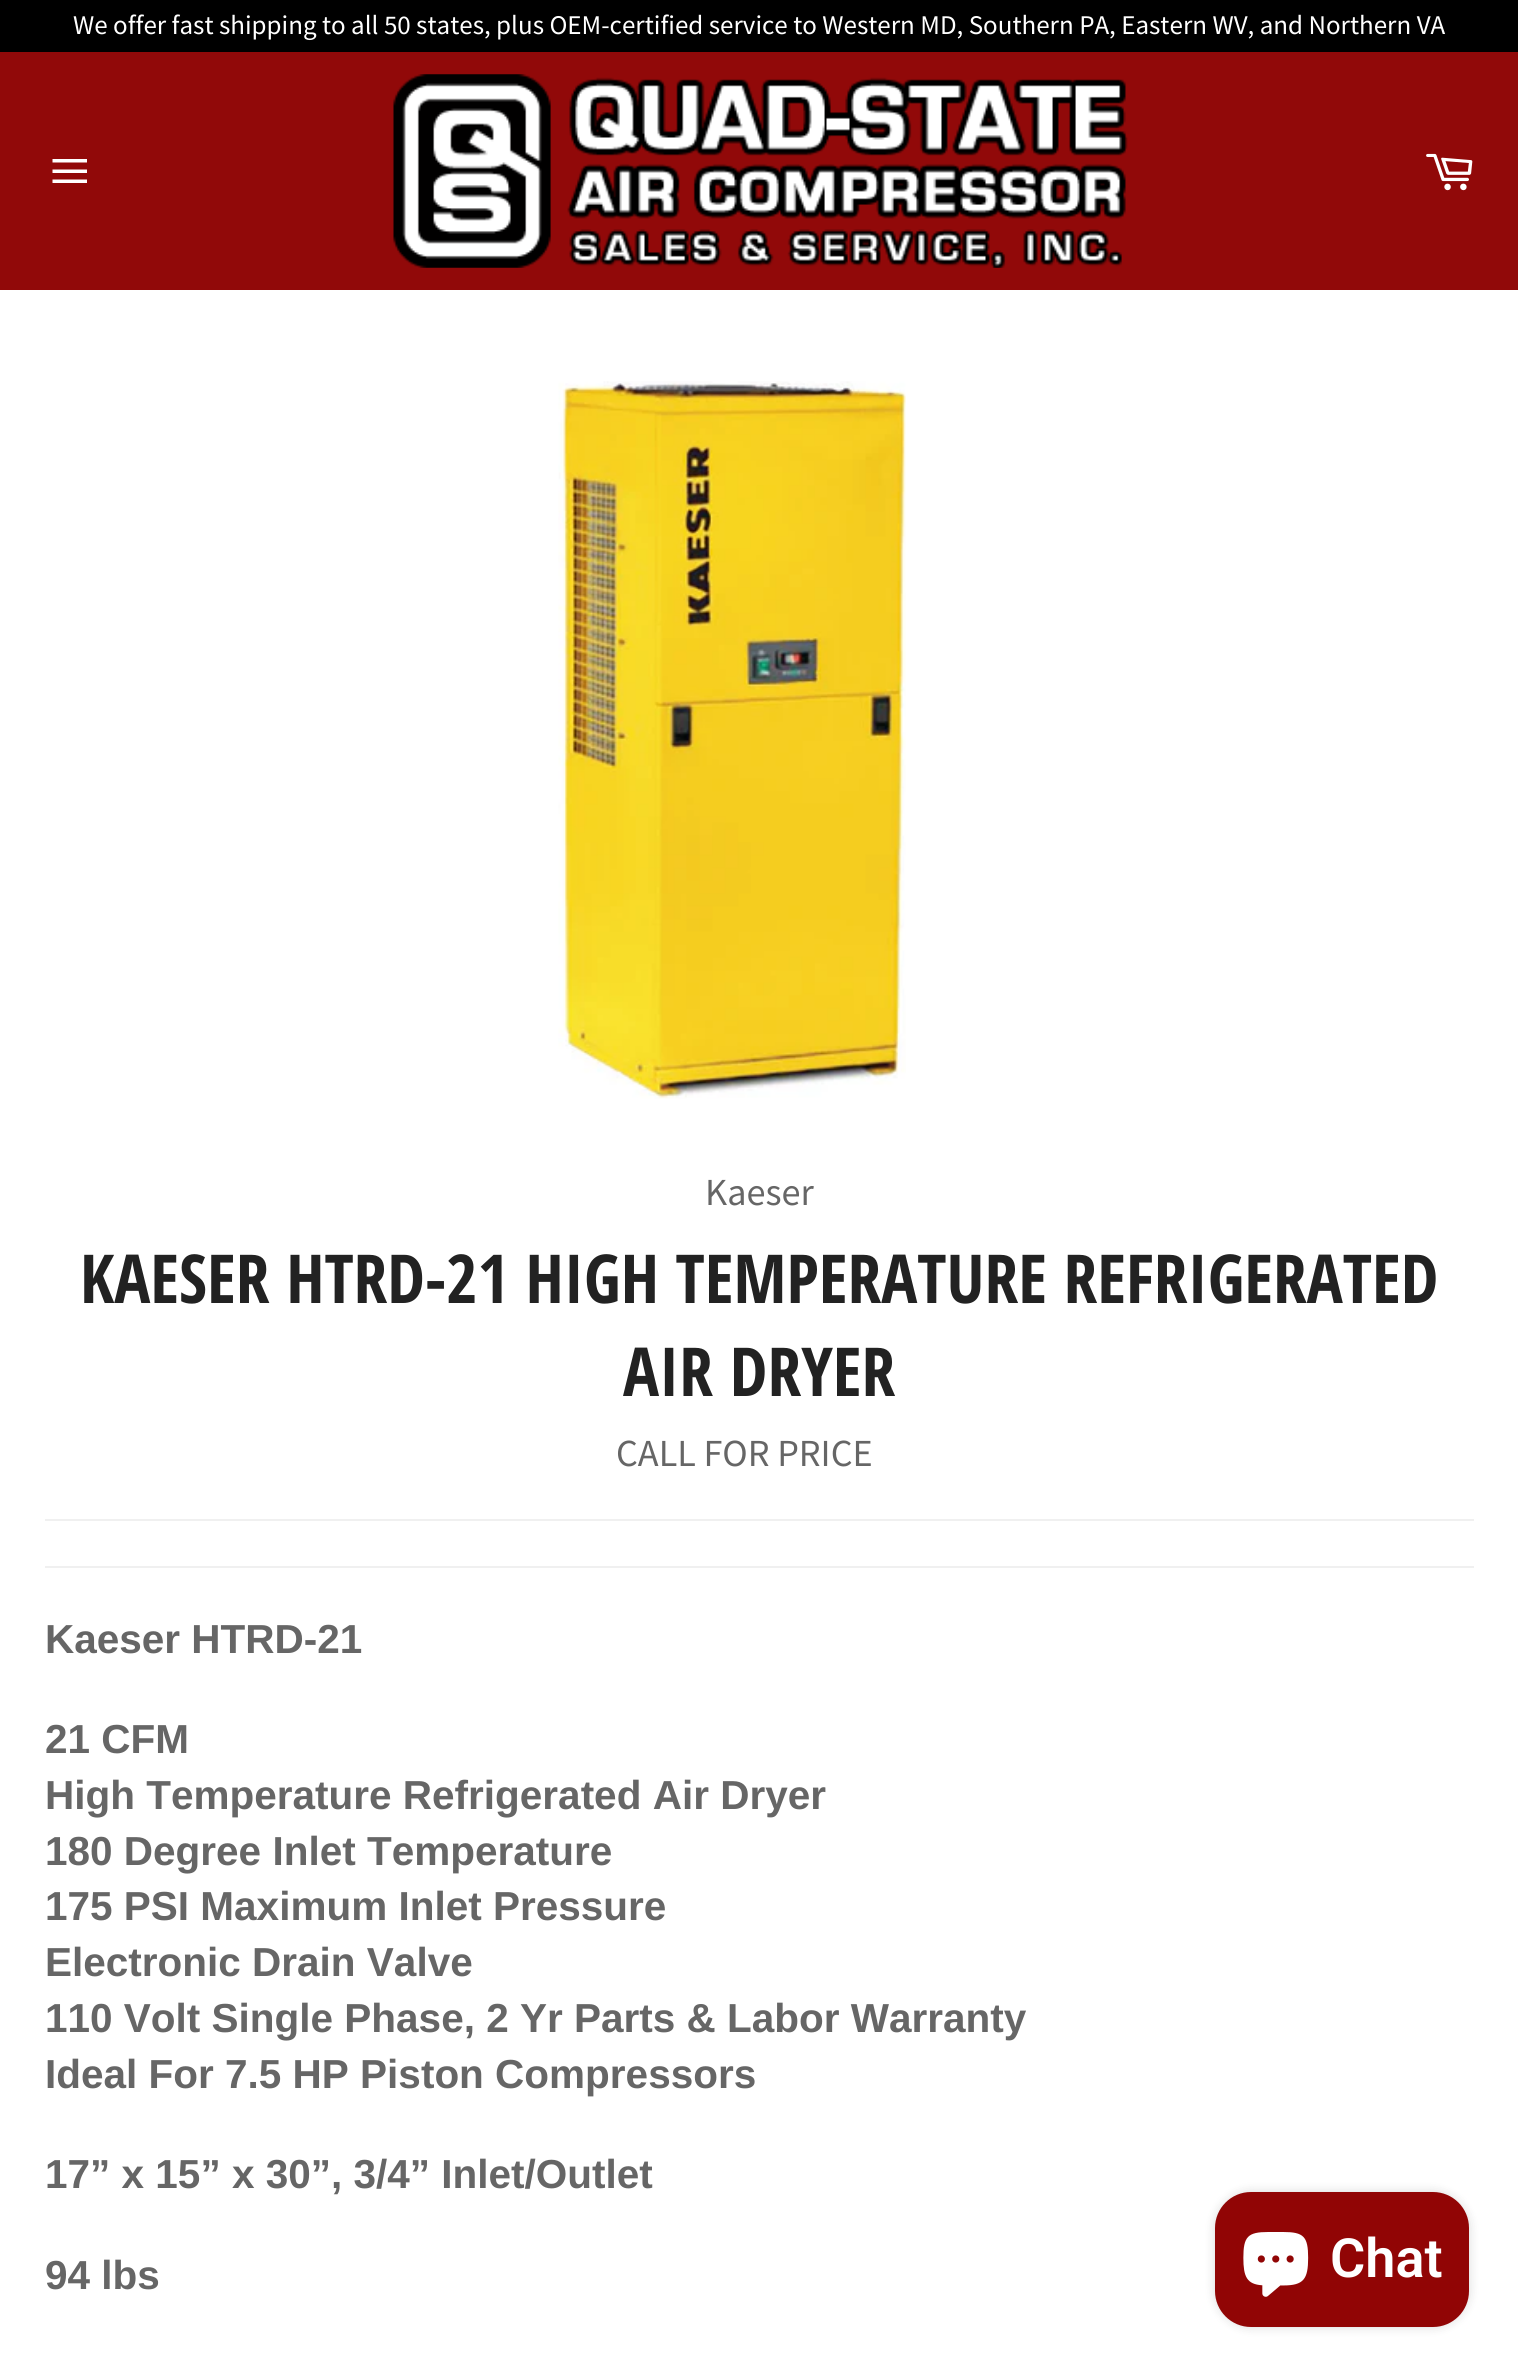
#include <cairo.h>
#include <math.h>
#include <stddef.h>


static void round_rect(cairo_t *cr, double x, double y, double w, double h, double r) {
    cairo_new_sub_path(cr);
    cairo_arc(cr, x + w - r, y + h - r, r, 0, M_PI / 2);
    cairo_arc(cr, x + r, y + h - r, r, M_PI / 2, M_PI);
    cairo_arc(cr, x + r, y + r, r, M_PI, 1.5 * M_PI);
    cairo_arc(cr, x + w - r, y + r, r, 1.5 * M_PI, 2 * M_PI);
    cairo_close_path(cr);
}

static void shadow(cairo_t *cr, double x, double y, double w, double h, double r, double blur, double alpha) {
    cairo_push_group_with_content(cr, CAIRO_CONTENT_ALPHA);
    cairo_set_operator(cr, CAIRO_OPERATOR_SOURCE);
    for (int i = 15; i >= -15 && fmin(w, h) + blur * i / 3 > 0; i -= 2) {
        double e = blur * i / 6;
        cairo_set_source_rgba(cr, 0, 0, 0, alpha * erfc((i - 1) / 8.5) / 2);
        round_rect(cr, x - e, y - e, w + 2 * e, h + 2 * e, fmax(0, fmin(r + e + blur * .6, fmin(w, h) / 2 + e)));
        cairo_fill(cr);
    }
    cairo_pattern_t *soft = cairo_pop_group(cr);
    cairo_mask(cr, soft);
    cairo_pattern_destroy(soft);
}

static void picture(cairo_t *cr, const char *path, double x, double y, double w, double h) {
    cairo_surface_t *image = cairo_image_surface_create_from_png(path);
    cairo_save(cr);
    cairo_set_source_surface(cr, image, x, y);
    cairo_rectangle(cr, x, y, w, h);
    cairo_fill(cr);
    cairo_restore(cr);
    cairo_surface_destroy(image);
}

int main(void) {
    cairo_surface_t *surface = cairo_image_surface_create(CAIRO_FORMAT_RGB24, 1518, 2373);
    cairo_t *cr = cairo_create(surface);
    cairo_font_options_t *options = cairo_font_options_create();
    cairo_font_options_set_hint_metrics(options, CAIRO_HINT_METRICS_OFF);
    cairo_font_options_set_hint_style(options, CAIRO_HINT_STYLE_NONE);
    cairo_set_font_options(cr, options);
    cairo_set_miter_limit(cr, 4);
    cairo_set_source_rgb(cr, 0, 0, 0);
    cairo_paint(cr);
    cairo_select_font_face(cr, "Source Sans Pro", CAIRO_FONT_SLANT_NORMAL, CAIRO_FONT_WEIGHT_NORMAL);
    cairo_set_font_size(cr, 27);
    cairo_set_source_rgb(cr, 1, 1, 1);
    cairo_move_to(cr, 73, 34);
    cairo_show_text(cr, "We offer fast shipping to all 50 states, plus OEM-certified service to Western MD, Southern PA, Eastern WV, and Northern VA");
    cairo_rectangle(cr, 0, 290, 1518, 2083);
    cairo_fill(cr);
    cairo_set_source_rgb(cr, 0.569, 0.039, 0.039);
    cairo_rectangle(cr, 0, 52, 1518, 238);
    cairo_fill(cr);
    cairo_set_source_rgb(cr, 1, 1, 1);
    cairo_new_path(cr);
    cairo_move_to(cr, 52.5, 169.5);
    cairo_line_to(cr, 87, 169.5);
    cairo_line_to(cr, 87, 173);
    cairo_line_to(cr, 52.5, 173);
    cairo_close_path(cr);
    cairo_move_to(cr, 52.5, 159);
    cairo_line_to(cr, 87, 159);
    cairo_line_to(cr, 87, 162.5);
    cairo_line_to(cr, 52.5, 162.5);
    cairo_close_path(cr);
    cairo_move_to(cr, 52.5, 179.5);
    cairo_line_to(cr, 87, 179.5);
    cairo_line_to(cr, 87, 183);
    cairo_line_to(cr, 52.5, 183);
    cairo_close_path(cr);
    cairo_fill(cr);
    picture(cr, "img1.png", 393, 74, 735, 194);
    picture(cr, "img2.png", 1426, 153, 47, 38);
    picture(cr, "img3.png", 558, 381, 348, 718);
    cairo_set_font_size(cr, 38.25);
    cairo_set_source_rgb(cr, 0.4, 0.4, 0.4);
    cairo_move_to(cr, 705, 1205);
    cairo_show_text(cr, "Kaeser");
    cairo_select_font_face(cr, "Open Sans Condensed", CAIRO_FONT_SLANT_NORMAL, CAIRO_FONT_WEIGHT_BOLD);
    cairo_set_font_size(cr, 67.5);
    cairo_set_source_rgb(cr, 0.133, 0.133, 0.133);
    cairo_move_to(cr, 80, 1303);
    cairo_show_text(cr, "KAESER HTRD-21 HIGH TEMPERATURE REFRIGERATED");
    cairo_move_to(cr, 623, 1396);
    cairo_show_text(cr, "AIR DRYER");
    cairo_select_font_face(cr, "Source Sans Pro", CAIRO_FONT_SLANT_NORMAL, CAIRO_FONT_WEIGHT_NORMAL);
    cairo_set_font_size(cr, 38.25);
    cairo_set_source_rgb(cr, 0.4, 0.4, 0.4);
    cairo_move_to(cr, 616, 1466);
    cairo_show_text(cr, "CALL FOR PRICE");
    cairo_set_source_rgb(cr, 0.941, 0.941, 0.941);
    cairo_rectangle(cr, 45, 1519, 1429, 2);
    cairo_fill(cr);
    cairo_rectangle(cr, 45, 1566, 1429, 2);
    cairo_fill(cr);
    cairo_select_font_face(cr, "Liberation Sans", CAIRO_FONT_SLANT_NORMAL, CAIRO_FONT_WEIGHT_BOLD);
    cairo_set_font_size(cr, 40.5);
    cairo_set_source_rgb(cr, 0.4, 0.4, 0.4);
    cairo_move_to(cr, 45, 1653);
    cairo_show_text(cr, "Kaeser HTRD-21");
    cairo_move_to(cr, 45, 1753);
    cairo_show_text(cr, "21 CFM");
    cairo_move_to(cr, 45, 1809);
    cairo_show_text(cr, "High Temperature Refrigerated Air Dryer");
    cairo_move_to(cr, 45, 1865);
    cairo_show_text(cr, "180 Degree Inlet Temperature");
    cairo_move_to(cr, 45, 1920);
    cairo_show_text(cr, "175 PSI Maximum Inlet Pressure");
    cairo_move_to(cr, 45, 1976);
    cairo_show_text(cr, "Electronic Drain Valve");
    cairo_move_to(cr, 45, 2032);
    cairo_show_text(cr, "110 Volt Single Phase, 2 Yr Parts & Labor Warranty");
    cairo_move_to(cr, 45, 2088);
    cairo_show_text(cr, "Ideal For 7.5 HP Piston Compressors");
    cairo_move_to(cr, 45, 2188);
    cairo_show_text(cr, "17” x 15” x 30”, 3/4” Inlet/Outlet");
    cairo_move_to(cr, 45, 2289);
    cairo_show_text(cr, "94 lbs");
    cairo_set_source_rgb(cr, 0, 0, 0);
    shadow(cr, 1215, 2192, 254, 135, 36, 5.5, 0.15);
    cairo_set_source_rgb(cr, 0.569, 0.02, 0.02);
    round_rect(cr, 1215, 2192, 254, 135, 36);
    cairo_fill(cr);
    picture(cr, "img4.png", 1243, 2232, 66, 65);
    cairo_select_font_face(cr, "Roboto SemiBold", CAIRO_FONT_SLANT_NORMAL, CAIRO_FONT_WEIGHT_NORMAL);
    cairo_set_font_size(cr, 54);
    cairo_set_source_rgb(cr, 1, 1, 1);
    cairo_move_to(cr, 1330, 2277);
    cairo_show_text(cr, "Chat");
    cairo_surface_write_to_png(surface, "page.png");
    cairo_font_options_destroy(options);
    cairo_destroy(cr);
    cairo_surface_destroy(surface);
    return 0;
}
